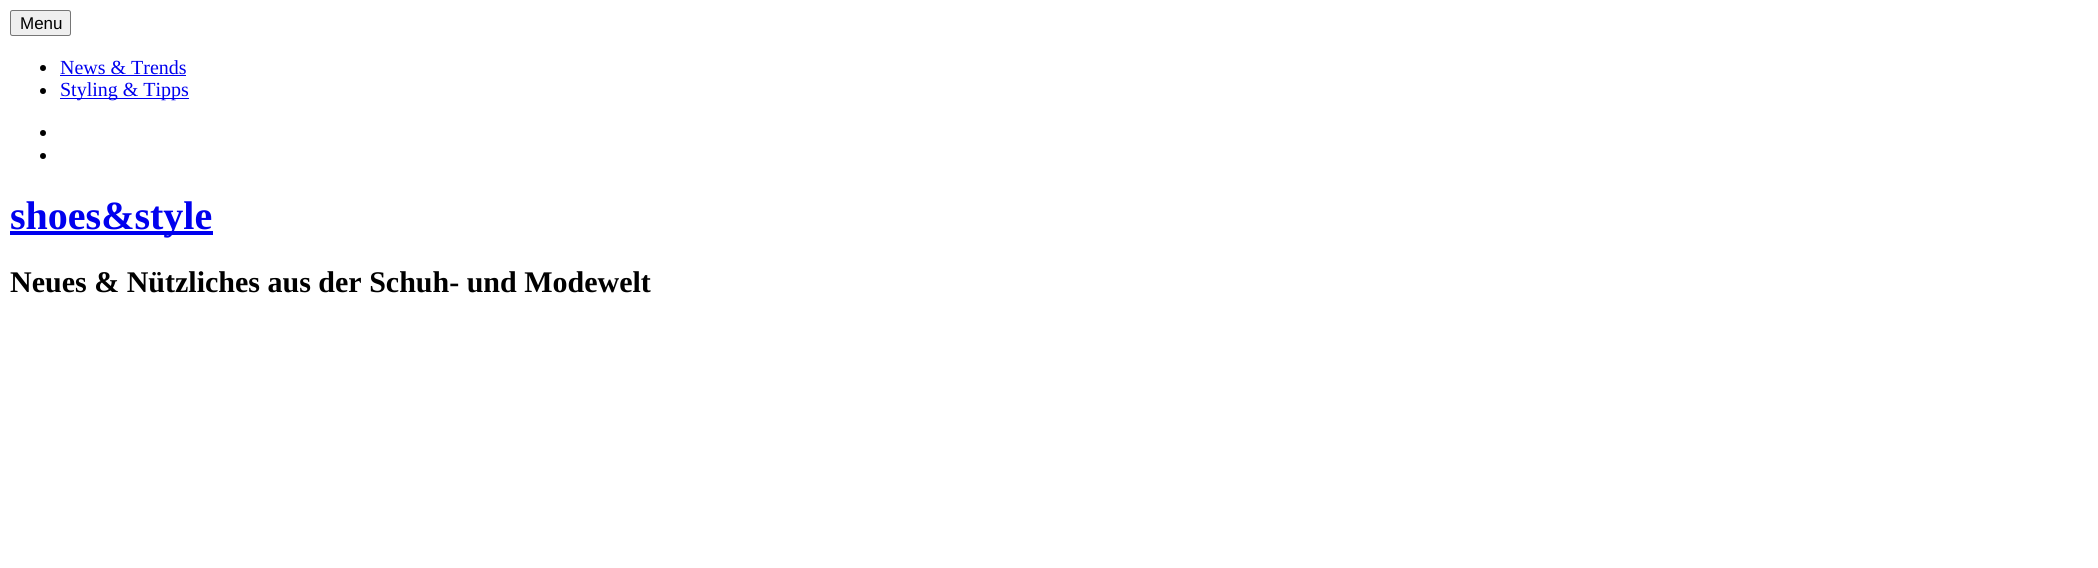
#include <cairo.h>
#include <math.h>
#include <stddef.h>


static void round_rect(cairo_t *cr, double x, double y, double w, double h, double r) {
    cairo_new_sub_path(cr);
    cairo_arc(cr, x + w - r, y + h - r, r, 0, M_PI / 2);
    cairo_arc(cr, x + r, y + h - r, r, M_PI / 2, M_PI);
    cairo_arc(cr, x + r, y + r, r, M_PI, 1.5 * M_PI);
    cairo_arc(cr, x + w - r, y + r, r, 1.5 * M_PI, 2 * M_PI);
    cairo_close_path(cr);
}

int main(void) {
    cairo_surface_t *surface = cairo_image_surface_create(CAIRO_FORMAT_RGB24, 2098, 568);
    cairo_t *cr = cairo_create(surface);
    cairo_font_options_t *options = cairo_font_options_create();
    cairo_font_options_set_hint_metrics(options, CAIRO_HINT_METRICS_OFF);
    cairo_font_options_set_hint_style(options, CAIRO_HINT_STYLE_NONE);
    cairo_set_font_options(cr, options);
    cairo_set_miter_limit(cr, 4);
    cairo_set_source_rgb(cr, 1, 1, 1);
    cairo_paint(cr);
    cairo_set_source_rgb(cr, 0.937, 0.937, 0.937);
    round_rect(cr, 10.5, 10.5, 60, 25, 2);
    cairo_fill_preserve(cr);
    cairo_set_source_rgb(cr, 0.463, 0.463, 0.463);
    cairo_set_line_width(cr, 1);
    cairo_stroke(cr);
    cairo_select_font_face(cr, "Liberation Sans", CAIRO_FONT_SLANT_NORMAL, CAIRO_FONT_WEIGHT_NORMAL);
    cairo_set_font_size(cr, 17);
    cairo_set_source_rgb(cr, 0, 0, 0);
    cairo_move_to(cr, 20, 29);
    cairo_show_text(cr, "Menu");
    cairo_new_path(cr);
    cairo_arc(cr, 43, 68, 3, 0, 2 * M_PI);
    cairo_fill(cr);
    cairo_select_font_face(cr, "Liberation Serif", CAIRO_FONT_SLANT_NORMAL, CAIRO_FONT_WEIGHT_NORMAL);
    cairo_set_font_size(cr, 20);
    cairo_set_source_rgb(cr, 0, 0, 0.933);
    cairo_move_to(cr, 60, 74);
    cairo_show_text(cr, "News & Trends");
    cairo_rectangle(cr, 60, 75, 126, 1);
    cairo_fill(cr);
    cairo_set_source_rgb(cr, 0, 0, 0);
    cairo_arc(cr, 43, 91, 3, 0, 2 * M_PI);
    cairo_fill(cr);
    cairo_set_source_rgb(cr, 0, 0, 0.933);
    cairo_rectangle(cr, 60, 98, 129, 1);
    cairo_fill(cr);
    cairo_move_to(cr, 60, 96);
    cairo_show_text(cr, "Styling & Tipps");
    cairo_set_source_rgb(cr, 0, 0, 0);
    cairo_new_path(cr);
    cairo_arc(cr, 43, 133, 3, 0, 2 * M_PI);
    cairo_fill(cr);
    cairo_arc(cr, 43, 156, 3, 0, 2 * M_PI);
    cairo_fill(cr);
    cairo_set_source_rgb(cr, 0, 0, 0.933);
    cairo_rectangle(cr, 10, 231, 203, 4);
    cairo_fill(cr);
    cairo_select_font_face(cr, "Liberation Serif", CAIRO_FONT_SLANT_NORMAL, CAIRO_FONT_WEIGHT_BOLD);
    cairo_set_font_size(cr, 40);
    cairo_move_to(cr, 10, 229);
    cairo_show_text(cr, "shoes&style");
    cairo_set_font_size(cr, 30);
    cairo_set_source_rgb(cr, 0, 0, 0);
    cairo_move_to(cr, 10, 292);
    cairo_show_text(cr, "Neues & Nützliches aus der Schuh- und Modewelt");
    cairo_surface_write_to_png(surface, "page.png");
    cairo_font_options_destroy(options);
    cairo_destroy(cr);
    cairo_surface_destroy(surface);
    return 0;
}
